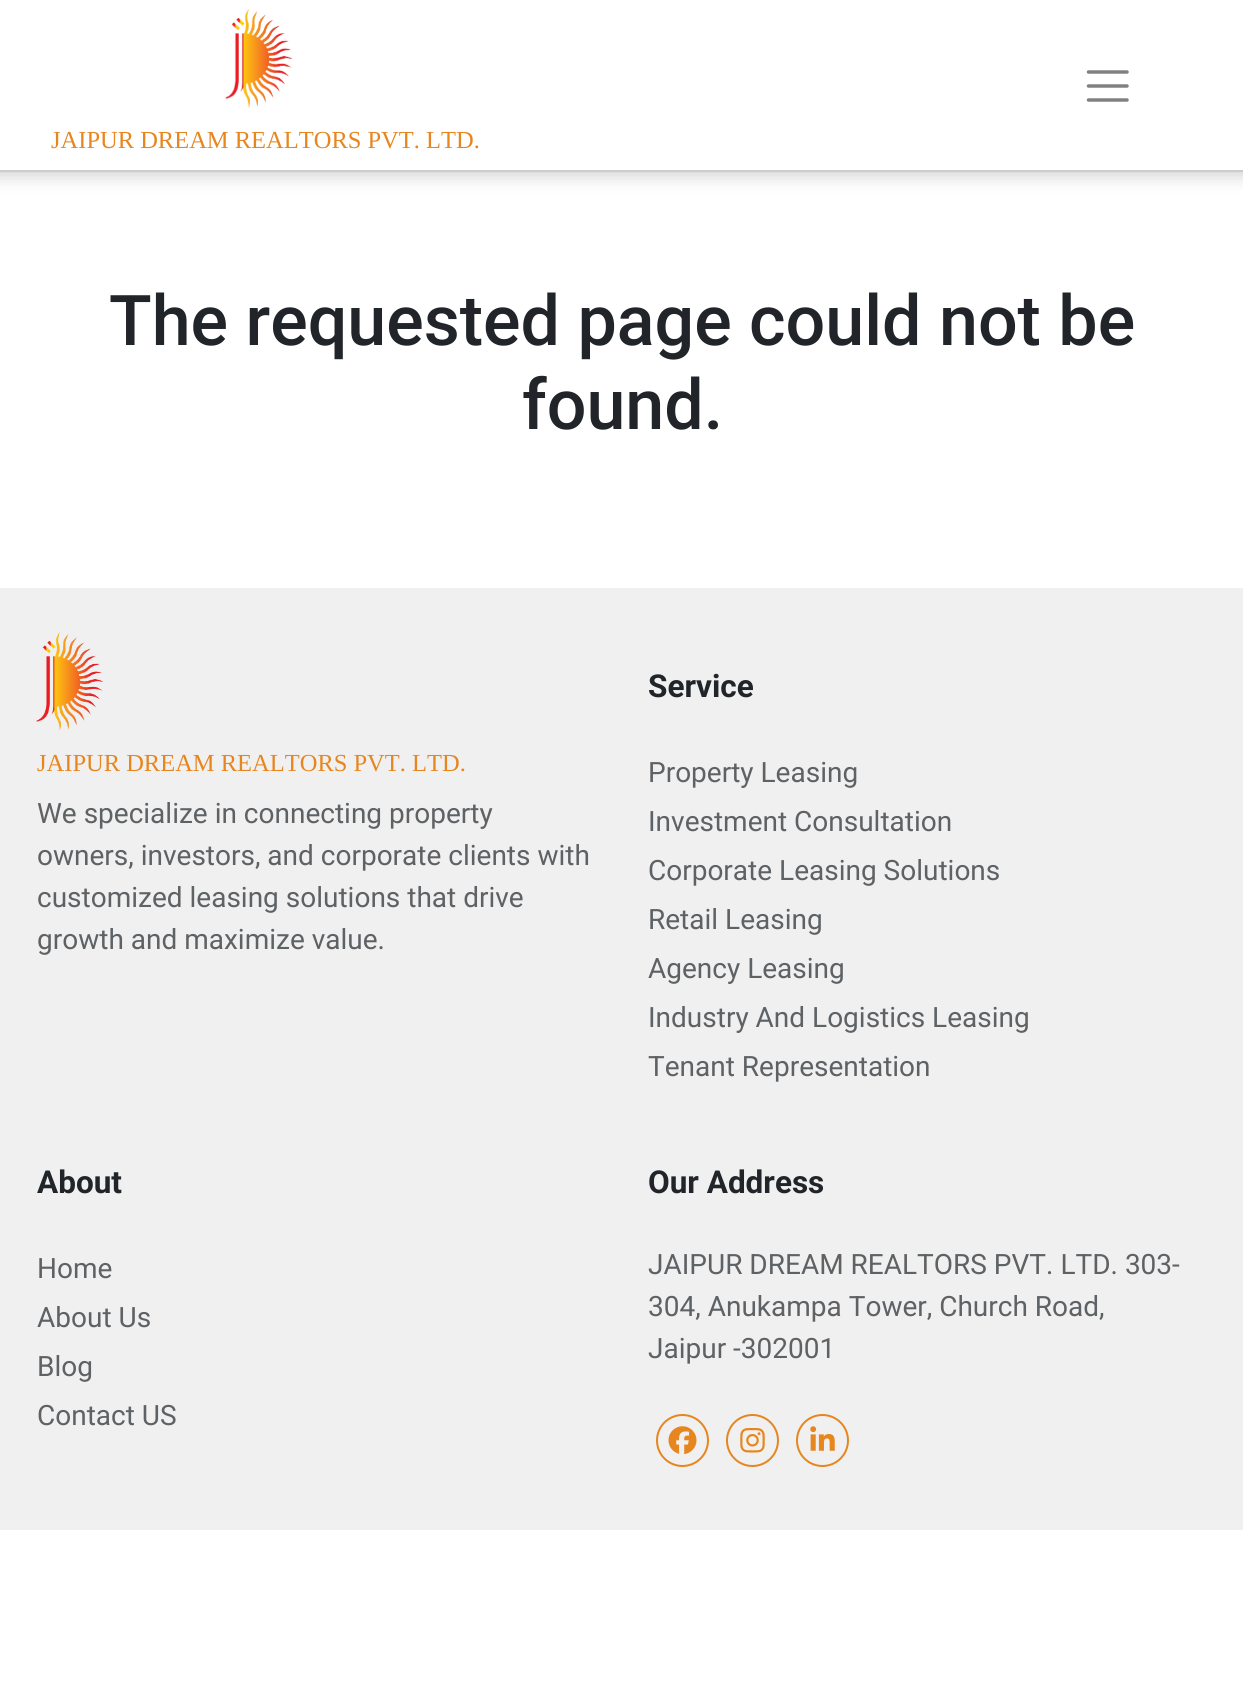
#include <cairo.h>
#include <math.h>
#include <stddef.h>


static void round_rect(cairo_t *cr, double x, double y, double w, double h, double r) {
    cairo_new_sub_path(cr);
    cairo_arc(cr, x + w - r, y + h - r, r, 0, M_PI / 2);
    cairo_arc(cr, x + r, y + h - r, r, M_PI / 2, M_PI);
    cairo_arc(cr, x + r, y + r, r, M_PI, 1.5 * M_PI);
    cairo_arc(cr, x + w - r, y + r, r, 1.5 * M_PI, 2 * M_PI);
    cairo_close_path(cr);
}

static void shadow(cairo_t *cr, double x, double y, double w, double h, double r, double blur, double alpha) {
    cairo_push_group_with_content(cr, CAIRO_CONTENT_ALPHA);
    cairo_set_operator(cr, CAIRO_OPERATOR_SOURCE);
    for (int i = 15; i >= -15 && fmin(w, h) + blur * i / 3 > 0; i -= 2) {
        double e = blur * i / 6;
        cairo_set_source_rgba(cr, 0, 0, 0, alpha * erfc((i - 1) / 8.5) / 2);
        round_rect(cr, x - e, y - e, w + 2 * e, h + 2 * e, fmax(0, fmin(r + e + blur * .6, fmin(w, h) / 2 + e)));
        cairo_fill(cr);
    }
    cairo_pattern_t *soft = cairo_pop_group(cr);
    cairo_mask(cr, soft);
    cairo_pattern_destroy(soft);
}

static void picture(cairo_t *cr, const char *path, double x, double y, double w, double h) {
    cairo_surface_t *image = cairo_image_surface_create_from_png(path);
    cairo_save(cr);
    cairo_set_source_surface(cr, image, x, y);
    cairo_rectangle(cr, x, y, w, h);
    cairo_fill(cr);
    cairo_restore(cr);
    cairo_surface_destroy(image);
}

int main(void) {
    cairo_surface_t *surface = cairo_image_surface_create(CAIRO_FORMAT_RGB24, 1243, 1703);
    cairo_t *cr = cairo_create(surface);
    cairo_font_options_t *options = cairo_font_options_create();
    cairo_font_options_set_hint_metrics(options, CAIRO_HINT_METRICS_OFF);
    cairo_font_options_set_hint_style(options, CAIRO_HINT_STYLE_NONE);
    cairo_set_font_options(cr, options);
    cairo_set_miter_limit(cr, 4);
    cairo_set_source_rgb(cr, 1, 1, 1);
    cairo_paint(cr);
    cairo_set_source_rgb(cr, 0, 0, 0);
    shadow(cr, -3, -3, 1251, 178, 0, 9, 0.2);
    cairo_set_source_rgb(cr, 1, 1, 1);
    cairo_rectangle(cr, 0, 0, 1243, 170);
    cairo_fill(cr);
    cairo_set_source_rgb(cr, 0.8, 0.8, 0.8);
    cairo_rectangle(cr, 0, 170, 1243, 2);
    cairo_fill(cr);
    cairo_new_path(cr);
    cairo_move_to(cr, 1088.5, 72);
    cairo_line_to(cr, 1127, 72);
    cairo_move_to(cr, 1088.5, 86);
    cairo_line_to(cr, 1127, 86);
    cairo_move_to(cr, 1088.5, 100);
    cairo_line_to(cr, 1127, 100);
    cairo_set_source_rgb(cr, 0.502, 0.502, 0.502);
    cairo_set_line_width(cr, 3.5);
    cairo_set_line_cap(cr, CAIRO_LINE_CAP_ROUND);
    cairo_stroke(cr);
    picture(cr, "img1.png", 225, 9, 67, 99);
    cairo_select_font_face(cr, "Liberation Serif", CAIRO_FONT_SLANT_NORMAL, CAIRO_FONT_WEIGHT_NORMAL);
    cairo_set_font_size(cr, 24.5);
    cairo_set_source_rgb(cr, 0.906, 0.525, 0.122);
    cairo_move_to(cr, 51, 148);
    cairo_show_text(cr, "JAIPUR DREAM REALTORS PVT. LTD.");
    cairo_select_font_face(cr, "Roboto Medium", CAIRO_FONT_SLANT_NORMAL, CAIRO_FONT_WEIGHT_NORMAL);
    cairo_set_font_size(cr, 70);
    cairo_set_source_rgb(cr, 0.129, 0.145, 0.161);
    cairo_move_to(cr, 109, 345);
    cairo_show_text(cr, "The requested page could not be");
    cairo_move_to(cr, 522, 429);
    cairo_show_text(cr, "found.");
    cairo_set_source_rgb(cr, 0.941, 0.941, 0.941);
    cairo_rectangle(cr, 0, 588, 1243, 942);
    cairo_fill(cr);
    picture(cr, "img2.png", 36, 632, 67, 99);
    cairo_select_font_face(cr, "Liberation Serif", CAIRO_FONT_SLANT_NORMAL, CAIRO_FONT_WEIGHT_NORMAL);
    cairo_set_font_size(cr, 24.5);
    cairo_set_source_rgb(cr, 0.906, 0.525, 0.122);
    cairo_move_to(cr, 37, 771);
    cairo_show_text(cr, "JAIPUR DREAM REALTORS PVT. LTD.");
    cairo_select_font_face(cr, "Roboto", CAIRO_FONT_SLANT_NORMAL, CAIRO_FONT_WEIGHT_NORMAL);
    cairo_set_font_size(cr, 28);
    cairo_set_source_rgb(cr, 0.373, 0.384, 0.396);
    cairo_move_to(cr, 37, 823);
    cairo_show_text(cr, "We specialize in connecting property");
    cairo_move_to(cr, 37, 865);
    cairo_show_text(cr, "owners, investors, and corporate clients with");
    cairo_move_to(cr, 37, 907);
    cairo_show_text(cr, "customized leasing solutions that drive");
    cairo_move_to(cr, 37, 949);
    cairo_show_text(cr, "growth and maximize value.");
    cairo_select_font_face(cr, "Roboto", CAIRO_FONT_SLANT_NORMAL, CAIRO_FONT_WEIGHT_BOLD);
    cairo_set_font_size(cr, 31.5);
    cairo_set_source_rgb(cr, 0.129, 0.145, 0.161);
    cairo_move_to(cr, 648, 697);
    cairo_show_text(cr, "Service");
    cairo_select_font_face(cr, "Roboto", CAIRO_FONT_SLANT_NORMAL, CAIRO_FONT_WEIGHT_NORMAL);
    cairo_set_font_size(cr, 28);
    cairo_set_source_rgb(cr, 0.373, 0.384, 0.396);
    cairo_move_to(cr, 648, 782);
    cairo_show_text(cr, "Property Leasing");
    cairo_move_to(cr, 648, 831);
    cairo_show_text(cr, "Investment Consultation");
    cairo_move_to(cr, 648, 880);
    cairo_show_text(cr, "Corporate Leasing Solutions");
    cairo_move_to(cr, 648, 929);
    cairo_show_text(cr, "Retail Leasing");
    cairo_move_to(cr, 648, 978);
    cairo_show_text(cr, "Agency Leasing");
    cairo_move_to(cr, 648, 1027);
    cairo_show_text(cr, "Industry And Logistics Leasing");
    cairo_move_to(cr, 648, 1076);
    cairo_show_text(cr, "Tenant Representation");
    cairo_select_font_face(cr, "Roboto", CAIRO_FONT_SLANT_NORMAL, CAIRO_FONT_WEIGHT_BOLD);
    cairo_set_font_size(cr, 31.5);
    cairo_set_source_rgb(cr, 0.129, 0.145, 0.161);
    cairo_move_to(cr, 37, 1193);
    cairo_show_text(cr, "About");
    cairo_select_font_face(cr, "Roboto", CAIRO_FONT_SLANT_NORMAL, CAIRO_FONT_WEIGHT_NORMAL);
    cairo_set_font_size(cr, 28);
    cairo_set_source_rgb(cr, 0.373, 0.384, 0.396);
    cairo_move_to(cr, 37, 1278);
    cairo_show_text(cr, "Home");
    cairo_move_to(cr, 37, 1327);
    cairo_show_text(cr, "About Us");
    cairo_move_to(cr, 37, 1376);
    cairo_show_text(cr, "Blog");
    cairo_move_to(cr, 37, 1425);
    cairo_show_text(cr, "Contact US");
    cairo_select_font_face(cr, "Roboto", CAIRO_FONT_SLANT_NORMAL, CAIRO_FONT_WEIGHT_BOLD);
    cairo_set_font_size(cr, 31.5);
    cairo_set_source_rgb(cr, 0.129, 0.145, 0.161);
    cairo_move_to(cr, 648, 1193);
    cairo_show_text(cr, "Our Address");
    cairo_select_font_face(cr, "Roboto", CAIRO_FONT_SLANT_NORMAL, CAIRO_FONT_WEIGHT_NORMAL);
    cairo_set_font_size(cr, 28);
    cairo_set_source_rgb(cr, 0.373, 0.384, 0.396);
    cairo_move_to(cr, 648, 1274);
    cairo_show_text(cr, "JAIPUR DREAM REALTORS PVT. LTD. 303-");
    cairo_move_to(cr, 648, 1316);
    cairo_show_text(cr, "304, Anukampa Tower, Church Road,");
    cairo_move_to(cr, 648, 1358);
    cairo_show_text(cr, "Jaipur -302001");
    cairo_new_path(cr);
    cairo_arc(cr, 682.5, 1440.5, 25.5, 0, 2 * M_PI);
    cairo_set_source_rgb(cr, 0.906, 0.525, 0.122);
    cairo_set_line_width(cr, 2);
    cairo_set_line_cap(cr, CAIRO_LINE_CAP_BUTT);
    cairo_stroke(cr);
    picture(cr, "img3.png", 668, 1426, 29, 29);
    cairo_arc(cr, 752.5, 1440.5, 25.5, 0, 2 * M_PI);
    cairo_stroke(cr);
    picture(cr, "img4.png", 740, 1428, 25, 25);
    cairo_arc(cr, 822.5, 1440.5, 25.5, 0, 2 * M_PI);
    cairo_stroke(cr);
    picture(cr, "img5.png", 810, 1426, 25, 25);
    cairo_surface_write_to_png(surface, "page.png");
    cairo_font_options_destroy(options);
    cairo_destroy(cr);
    cairo_surface_destroy(surface);
    return 0;
}
